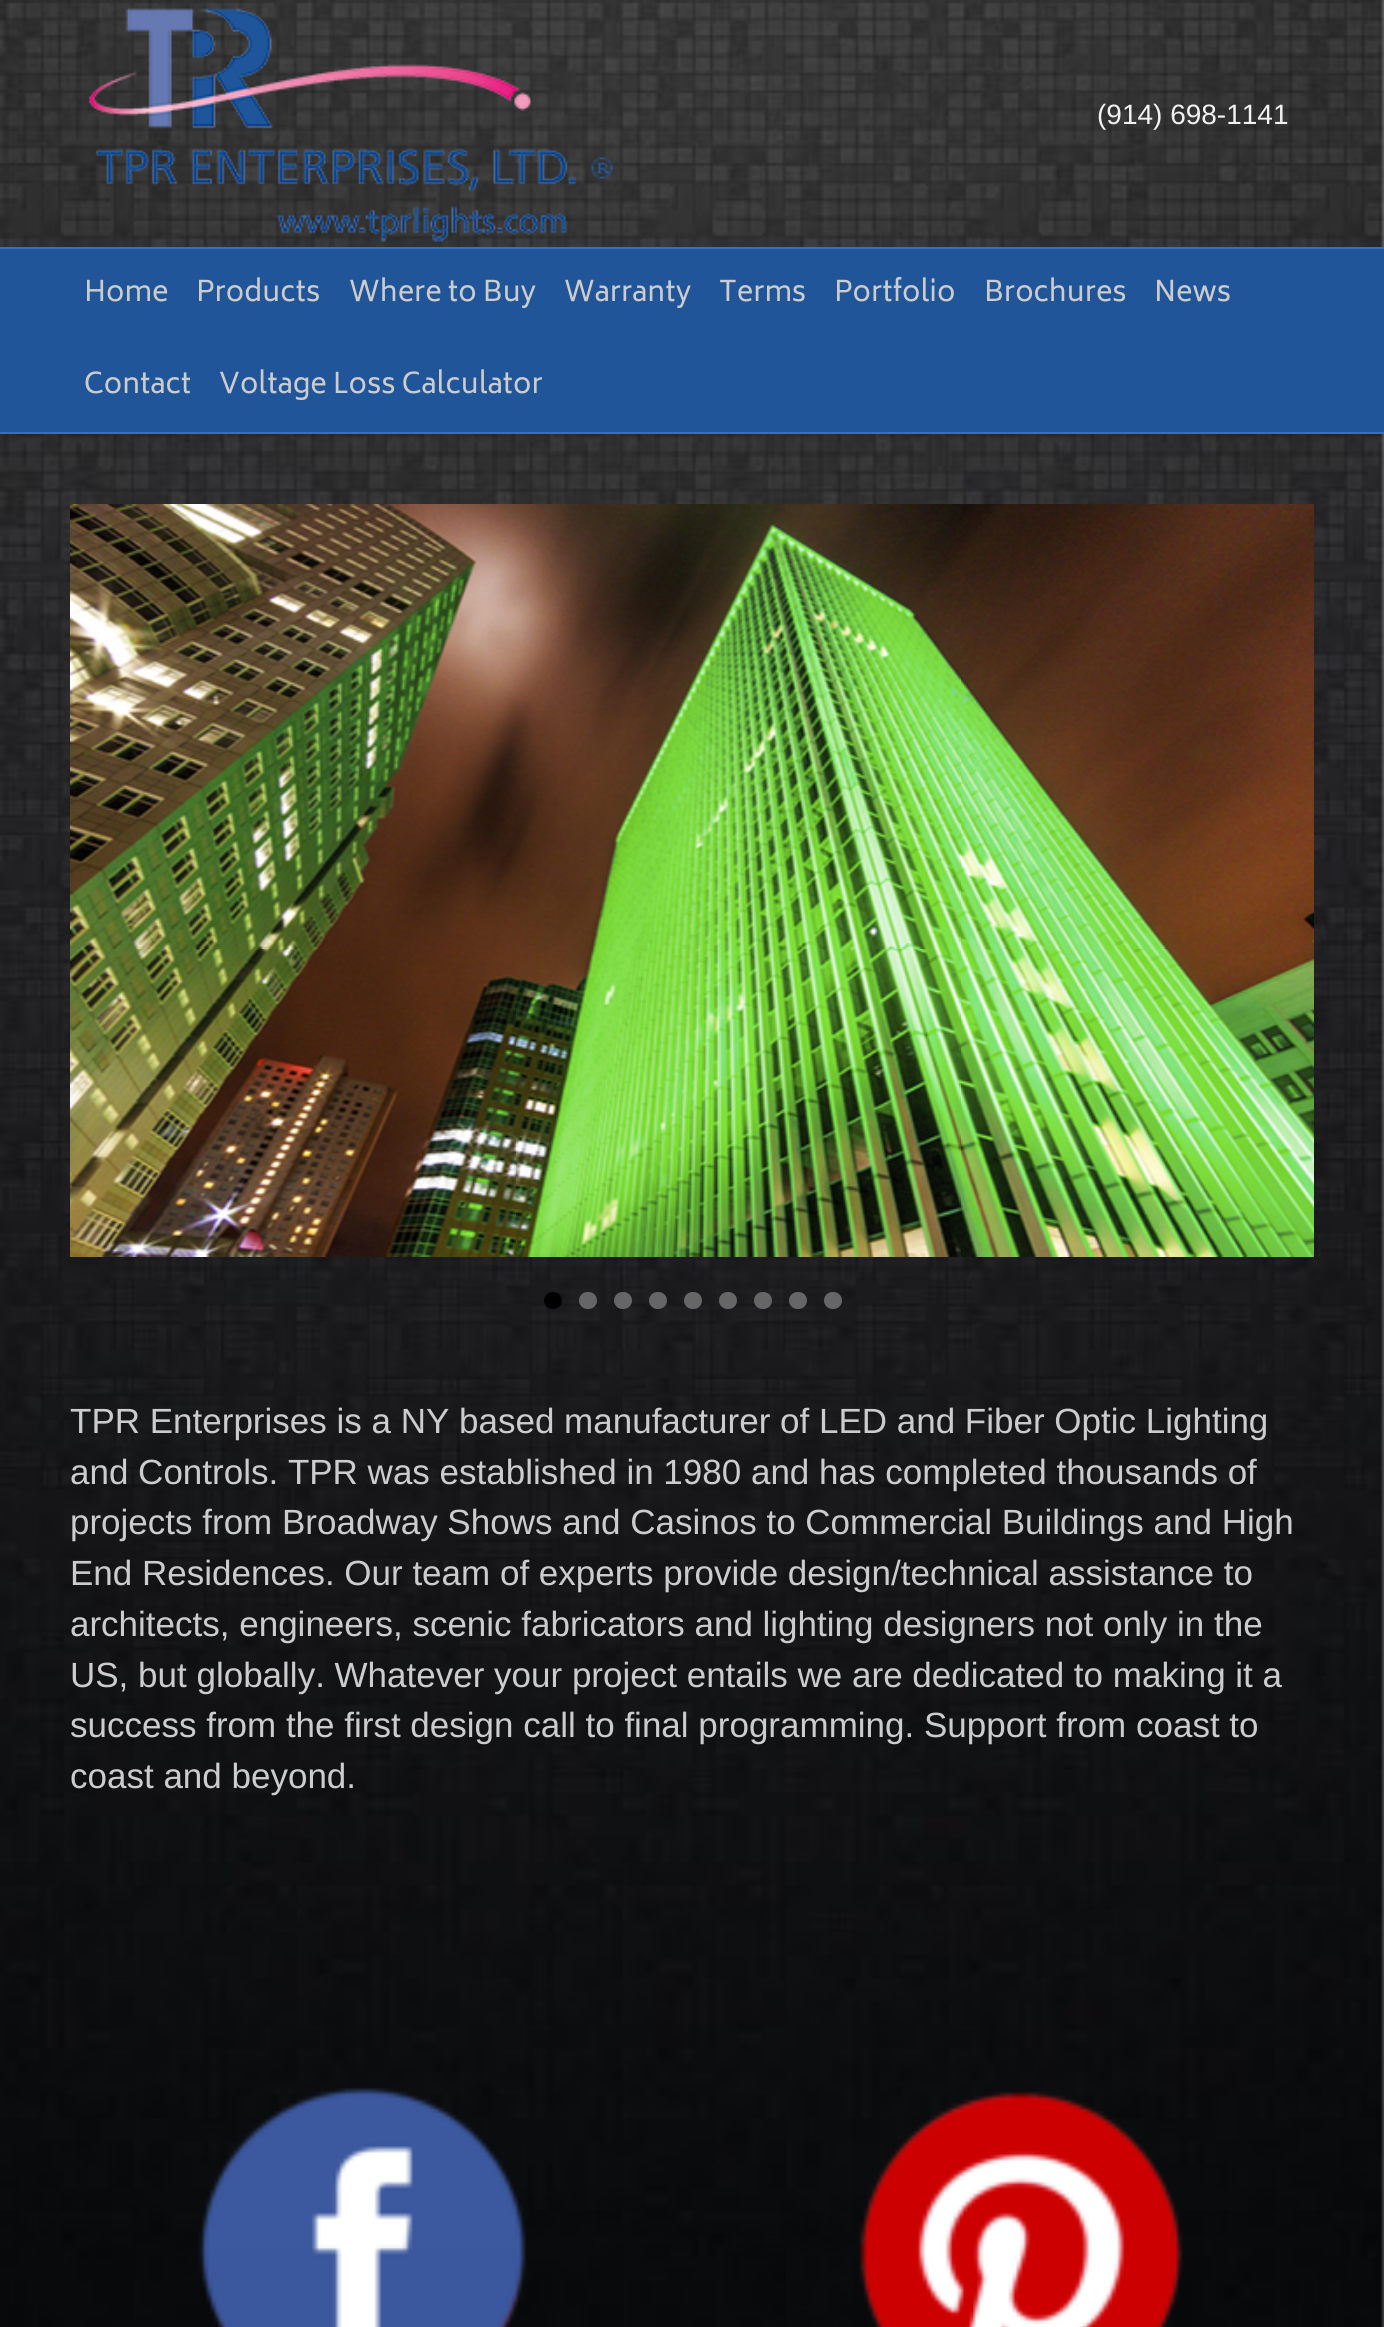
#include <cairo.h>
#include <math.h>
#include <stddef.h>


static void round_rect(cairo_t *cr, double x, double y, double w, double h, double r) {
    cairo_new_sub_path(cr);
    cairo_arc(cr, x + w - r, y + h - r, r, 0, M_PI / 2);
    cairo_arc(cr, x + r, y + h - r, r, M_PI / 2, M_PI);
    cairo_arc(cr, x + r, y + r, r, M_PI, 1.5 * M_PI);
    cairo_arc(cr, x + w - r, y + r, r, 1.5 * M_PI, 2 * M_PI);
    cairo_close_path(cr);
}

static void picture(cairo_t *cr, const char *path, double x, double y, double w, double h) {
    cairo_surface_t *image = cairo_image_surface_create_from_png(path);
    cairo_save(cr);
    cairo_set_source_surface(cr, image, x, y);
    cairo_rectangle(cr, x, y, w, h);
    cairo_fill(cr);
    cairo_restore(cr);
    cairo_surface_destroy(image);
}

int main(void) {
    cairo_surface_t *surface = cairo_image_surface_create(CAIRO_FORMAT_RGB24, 1384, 2327);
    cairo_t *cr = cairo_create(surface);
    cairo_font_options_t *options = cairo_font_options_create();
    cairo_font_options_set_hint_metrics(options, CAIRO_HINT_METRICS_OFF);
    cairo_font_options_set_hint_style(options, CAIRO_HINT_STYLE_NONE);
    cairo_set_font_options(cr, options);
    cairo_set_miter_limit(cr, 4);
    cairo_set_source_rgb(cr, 1, 1, 1);
    cairo_paint(cr);
    picture(cr, "img1.png", 0, 0, 1384, 2327);
    picture(cr, "img2.png", 88, 8, 525, 234);
    cairo_select_font_face(cr, "Liberation Sans", CAIRO_FONT_SLANT_NORMAL, CAIRO_FONT_WEIGHT_NORMAL);
    cairo_set_font_size(cr, 28);
    cairo_set_source_rgb(cr, 0.949, 0.949, 0.949);
    cairo_move_to(cr, 1097, 124);
    cairo_show_text(cr, "(914) 698-1141");
    cairo_set_source_rgb(cr, 0.125, 0.333, 0.6);
    cairo_rectangle(cr, 0, 249, 1384, 183);
    cairo_fill(cr);
    cairo_set_source_rgb(cr, 0.169, 0.451, 0.816);
    cairo_rectangle(cr, 0, 247, 1384, 2);
    cairo_fill(cr);
    cairo_rectangle(cr, 0, 432, 1384, 2);
    cairo_fill(cr);
    cairo_select_font_face(cr, "Biryani", CAIRO_FONT_SLANT_NORMAL, CAIRO_FONT_WEIGHT_NORMAL);
    cairo_set_source_rgb(cr, 0.8, 0.8, 0.8);
    cairo_move_to(cr, 84, 301);
    cairo_show_text(cr, "Home");
    cairo_move_to(cr, 196, 301);
    cairo_show_text(cr, "Products");
    cairo_move_to(cr, 349, 301);
    cairo_show_text(cr, "Where to Buy");
    cairo_move_to(cr, 564, 301);
    cairo_show_text(cr, "Warranty");
    cairo_move_to(cr, 719, 301);
    cairo_show_text(cr, "Terms");
    cairo_move_to(cr, 834, 301);
    cairo_show_text(cr, "Portfolio");
    cairo_move_to(cr, 984, 301);
    cairo_show_text(cr, "Brochures");
    cairo_move_to(cr, 1154, 301);
    cairo_show_text(cr, "News");
    cairo_move_to(cr, 84, 393);
    cairo_show_text(cr, "Contact");
    cairo_move_to(cr, 219, 393);
    cairo_show_text(cr, "Voltage Loss Calculator");
    picture(cr, "img3.png", 70, 504, 1244, 753);
    cairo_set_source_rgb(cr, 0, 0, 0);
    round_rect(cr, 544, 1292, 18, 17, 8.5);
    cairo_fill(cr);
    cairo_set_source_rgb(cr, 0.4, 0.4, 0.4);
    round_rect(cr, 579, 1292, 18, 17, 8.5);
    cairo_fill(cr);
    round_rect(cr, 614, 1292, 18, 17, 8.5);
    cairo_fill(cr);
    round_rect(cr, 649, 1292, 18, 17, 8.5);
    cairo_fill(cr);
    round_rect(cr, 684, 1292, 18, 17, 8.5);
    cairo_fill(cr);
    round_rect(cr, 719, 1292, 18, 17, 8.5);
    cairo_fill(cr);
    round_rect(cr, 754, 1292, 18, 17, 8.5);
    cairo_fill(cr);
    round_rect(cr, 789, 1292, 18, 17, 8.5);
    cairo_fill(cr);
    round_rect(cr, 824, 1292, 18, 17, 8.5);
    cairo_fill(cr);
    cairo_select_font_face(cr, "Liberation Sans", CAIRO_FONT_SLANT_NORMAL, CAIRO_FONT_WEIGHT_NORMAL);
    cairo_set_font_size(cr, 35);
    cairo_set_source_rgb(cr, 0.8, 0.8, 0.8);
    cairo_move_to(cr, 70, 1433);
    cairo_show_text(cr, "TPR Enterprises is a NY based manufacturer of LED and Fiber Optic Lighting");
    cairo_move_to(cr, 70, 1484);
    cairo_show_text(cr, "and Controls. TPR was established in 1980 and has completed thousands of");
    cairo_move_to(cr, 70, 1534);
    cairo_show_text(cr, "projects from Broadway Shows and Casinos to Commercial Buildings and High");
    cairo_move_to(cr, 70, 1585);
    cairo_show_text(cr, "End Residences. Our team of experts provide design/technical assistance to");
    cairo_move_to(cr, 70, 1636);
    cairo_show_text(cr, "architects, engineers, scenic fabricators and lighting designers not only in the");
    cairo_move_to(cr, 70, 1687);
    cairo_show_text(cr, "US, but globally. Whatever your project entails we are dedicated to making it a");
    cairo_move_to(cr, 70, 1737);
    cairo_show_text(cr, "success from the first design call to final programming. Support from coast to");
    cairo_move_to(cr, 70, 1788);
    cairo_show_text(cr, "coast and beyond.");
    picture(cr, "img4.png", 198, 2087, 328, 240);
    picture(cr, "img5.png", 859, 2091, 324, 236);
    cairo_surface_write_to_png(surface, "page.png");
    cairo_font_options_destroy(options);
    cairo_destroy(cr);
    cairo_surface_destroy(surface);
    return 0;
}
